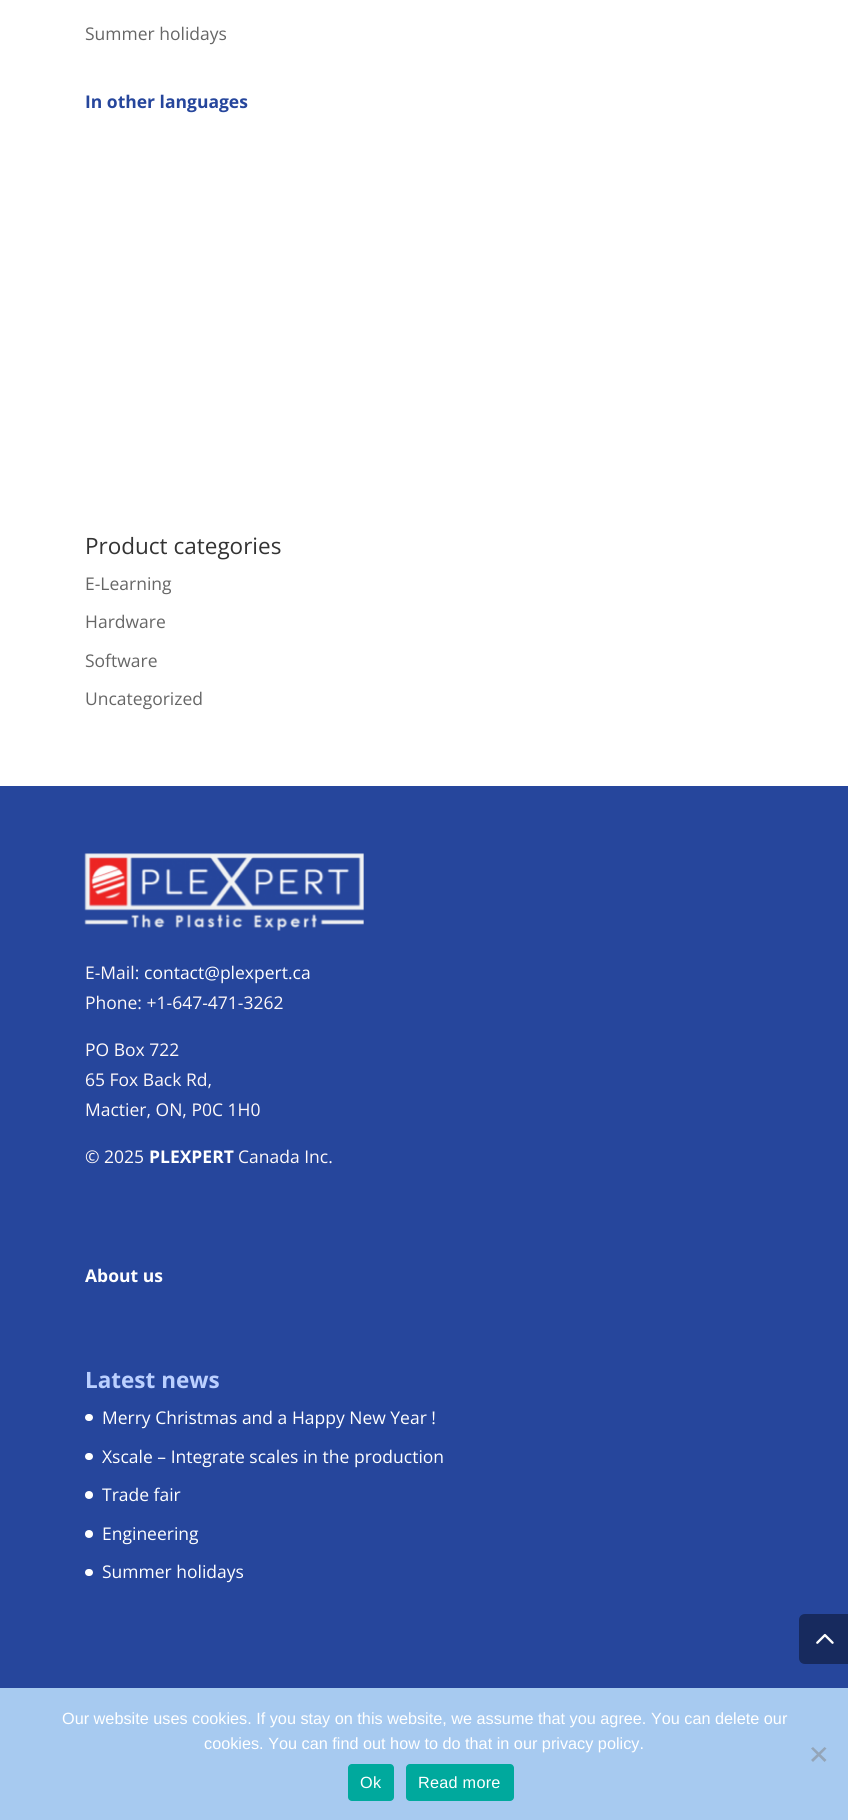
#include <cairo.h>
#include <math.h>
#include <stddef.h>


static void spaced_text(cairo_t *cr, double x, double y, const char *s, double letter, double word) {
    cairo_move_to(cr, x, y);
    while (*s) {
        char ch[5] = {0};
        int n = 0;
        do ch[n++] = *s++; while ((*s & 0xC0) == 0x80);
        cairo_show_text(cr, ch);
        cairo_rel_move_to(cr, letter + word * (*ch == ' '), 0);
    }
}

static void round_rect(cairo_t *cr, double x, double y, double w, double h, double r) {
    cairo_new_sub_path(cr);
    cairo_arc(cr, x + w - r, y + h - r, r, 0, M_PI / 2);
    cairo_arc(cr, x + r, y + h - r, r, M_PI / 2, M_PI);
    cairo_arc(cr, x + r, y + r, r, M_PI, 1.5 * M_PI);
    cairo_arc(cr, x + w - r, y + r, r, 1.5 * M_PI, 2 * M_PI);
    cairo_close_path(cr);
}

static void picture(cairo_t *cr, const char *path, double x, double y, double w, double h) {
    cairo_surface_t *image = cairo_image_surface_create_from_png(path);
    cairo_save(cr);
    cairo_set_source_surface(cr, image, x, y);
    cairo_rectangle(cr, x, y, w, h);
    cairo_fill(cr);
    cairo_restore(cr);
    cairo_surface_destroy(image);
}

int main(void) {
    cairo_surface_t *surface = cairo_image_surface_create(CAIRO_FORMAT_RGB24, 848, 1820);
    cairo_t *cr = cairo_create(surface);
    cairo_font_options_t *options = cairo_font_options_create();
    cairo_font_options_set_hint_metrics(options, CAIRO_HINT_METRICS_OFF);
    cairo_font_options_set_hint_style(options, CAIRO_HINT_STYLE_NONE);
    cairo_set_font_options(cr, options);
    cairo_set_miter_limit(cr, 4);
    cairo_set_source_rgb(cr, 1, 1, 1);
    cairo_paint(cr);
    cairo_select_font_face(cr, "Open Sans", CAIRO_FONT_SLANT_NORMAL, CAIRO_FONT_WEIGHT_NORMAL);
    cairo_set_font_size(cr, 17.5);
    cairo_set_source_rgb(cr, 0.4, 0.4, 0.4);
    cairo_move_to(cr, 85, 40);
    cairo_show_text(cr, "Summer holidays");
    cairo_select_font_face(cr, "Open Sans", CAIRO_FONT_SLANT_NORMAL, CAIRO_FONT_WEIGHT_BOLD);
    cairo_set_source_rgb(cr, 0.149, 0.275, 0.612);
    cairo_move_to(cr, 85, 108);
    cairo_show_text(cr, "In other languages");
    cairo_select_font_face(cr, "Open Sans", CAIRO_FONT_SLANT_NORMAL, CAIRO_FONT_WEIGHT_NORMAL);
    cairo_set_font_size(cr, 22.5);
    cairo_set_source_rgb(cr, 0.2, 0.2, 0.2);
    cairo_move_to(cr, 85, 554);
    cairo_show_text(cr, "Product categories");
    cairo_set_font_size(cr, 17.5);
    cairo_set_source_rgb(cr, 0.4, 0.4, 0.4);
    cairo_move_to(cr, 85, 590);
    cairo_show_text(cr, "E-Learning");
    cairo_move_to(cr, 85, 628);
    cairo_show_text(cr, "Hardware");
    cairo_move_to(cr, 85, 667);
    cairo_show_text(cr, "Software");
    cairo_move_to(cr, 85, 705);
    cairo_show_text(cr, "Uncategorized");
    cairo_set_source_rgb(cr, 0.149, 0.275, 0.612);
    cairo_rectangle(cr, 0, 786, 848, 902);
    cairo_fill(cr);
    picture(cr, "img1.png", 84, 853, 280, 78);
    cairo_set_source_rgb(cr, 1, 0.976, 0.976);
    cairo_move_to(cr, 85, 979);
    cairo_show_text(cr, "E-Mail:");
    cairo_set_source_rgb(cr, 1, 1, 1);
    cairo_move_to(cr, 144, 979);
    cairo_show_text(cr, "contact@plexpert.ca");
    cairo_set_source_rgb(cr, 1, 0.976, 0.976);
    cairo_move_to(cr, 85, 1009);
    cairo_show_text(cr, "Phone: +1-647-471-3262");
    cairo_move_to(cr, 85, 1056);
    cairo_show_text(cr, "PO Box 722");
    cairo_move_to(cr, 85, 1086);
    cairo_show_text(cr, "65 Fox Back Rd,");
    cairo_move_to(cr, 85, 1116);
    cairo_show_text(cr, "Mactier, ON, P0C 1H0");
    cairo_move_to(cr, 85, 1163);
    cairo_show_text(cr, "© 2025");
    cairo_select_font_face(cr, "Open Sans", CAIRO_FONT_SLANT_NORMAL, CAIRO_FONT_WEIGHT_BOLD);
    cairo_set_source_rgb(cr, 1, 1, 1);
    cairo_move_to(cr, 149, 1163);
    cairo_show_text(cr, "PLEXPERT");
    cairo_select_font_face(cr, "Open Sans", CAIRO_FONT_SLANT_NORMAL, CAIRO_FONT_WEIGHT_NORMAL);
    cairo_set_source_rgb(cr, 1, 0.976, 0.976);
    cairo_move_to(cr, 238, 1163);
    cairo_show_text(cr, "Canada Inc.");
    cairo_select_font_face(cr, "Open Sans", CAIRO_FONT_SLANT_NORMAL, CAIRO_FONT_WEIGHT_BOLD);
    cairo_set_source_rgb(cr, 1, 1, 1);
    cairo_move_to(cr, 85, 1282);
    cairo_show_text(cr, "About us");
    cairo_set_font_size(cr, 22.5);
    cairo_set_source_rgb(cr, 0.733, 0.816, 1);
    cairo_move_to(cr, 85, 1388);
    cairo_show_text(cr, "Latest news");
    cairo_set_source_rgb(cr, 1, 1, 1);
    round_rect(cr, 85, 1414, 8, 7, 3.5);
    cairo_fill(cr);
    cairo_select_font_face(cr, "Open Sans", CAIRO_FONT_SLANT_NORMAL, CAIRO_FONT_WEIGHT_NORMAL);
    cairo_set_font_size(cr, 17.5);
    cairo_move_to(cr, 102, 1424);
    cairo_show_text(cr, "Merry Christmas and a Happy New Year !");
    round_rect(cr, 85, 1453, 8, 7, 3.5);
    cairo_fill(cr);
    cairo_move_to(cr, 102, 1463);
    cairo_show_text(cr, "Xscale – Integrate scales in the production");
    cairo_new_path(cr);
    cairo_arc(cr, 89, 1495, 4, 0, 2 * M_PI);
    cairo_fill(cr);
    cairo_move_to(cr, 102, 1501);
    cairo_show_text(cr, "Trade fair");
    cairo_new_path(cr);
    cairo_arc(cr, 89, 1534, 4, 0, 2 * M_PI);
    cairo_fill(cr);
    cairo_move_to(cr, 102, 1540);
    cairo_show_text(cr, "Engineering");
    round_rect(cr, 85, 1569, 8, 7, 3.5);
    cairo_fill(cr);
    cairo_move_to(cr, 102, 1578);
    cairo_show_text(cr, "Summer holidays");
    cairo_set_source_rgb(cr, 0.09, 0.165, 0.369);
    cairo_new_path(cr);
    cairo_move_to(cr, 805, 1614);
    cairo_line_to(cr, 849, 1614);
    cairo_line_to(cr, 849, 1664);
    cairo_line_to(cr, 805, 1664);
    cairo_curve_to(cr, 801.5, 1664, 799, 1661.5, 799, 1658);
    cairo_line_to(cr, 799, 1620);
    cairo_curve_to(cr, 799, 1616.5, 801.5, 1614, 805, 1614);
    cairo_close_path(cr);
    cairo_fill(cr);
    picture(cr, "img2.png", 816, 1633, 18, 11);
    cairo_set_source_rgb(cr, 0.655, 0.792, 0.941);
    cairo_rectangle(cr, 0, 1688, 848, 132);
    cairo_fill(cr);
    cairo_select_font_face(cr, "Liberation Sans", CAIRO_FONT_SLANT_NORMAL, CAIRO_FONT_WEIGHT_NORMAL);
    cairo_set_font_size(cr, 16.25);
    cairo_set_source_rgb(cr, 1, 1, 1);
    cairo_move_to(cr, 62, 1724);
    cairo_show_text(cr, "Our website uses cookies. If you stay on this website, we assume that you agree. You can delete our");
    cairo_move_to(cr, 204, 1749);
    cairo_show_text(cr, "cookies. You can find out how to do that in our privacy policy.");
    cairo_set_source_rgb(cr, 0.58, 0.647, 0.722);
    cairo_new_path(cr);
    cairo_move_to(cr, 824.5, 1747);
    cairo_line_to(cr, 826.5, 1748.5);
    cairo_line_to(cr, 813, 1762);
    cairo_line_to(cr, 811, 1760);
    cairo_close_path(cr);
    cairo_fill(cr);
    cairo_new_path(cr);
    cairo_move_to(cr, 811, 1748.5);
    cairo_line_to(cr, 813, 1747);
    cairo_line_to(cr, 826.5, 1760);
    cairo_line_to(cr, 824.5, 1762);
    cairo_close_path(cr);
    cairo_fill(cr);
    cairo_set_source_rgb(cr, 0, 0.663, 0.616);
    round_rect(cr, 348, 1764, 46, 37, 4);
    cairo_fill(cr);
    cairo_set_source_rgb(cr, 1, 1, 1);
    spaced_text(cr, 360, 1788, "Ok", 0.25, 0);
    cairo_set_source_rgb(cr, 0, 0.663, 0.616);
    round_rect(cr, 406, 1764, 108, 37, 4);
    cairo_fill(cr);
    cairo_set_source_rgb(cr, 1, 1, 1);
    spaced_text(cr, 418, 1788, "Read more", 0.25, 0);
    cairo_surface_write_to_png(surface, "page.png");
    cairo_font_options_destroy(options);
    cairo_destroy(cr);
    cairo_surface_destroy(surface);
    return 0;
}
